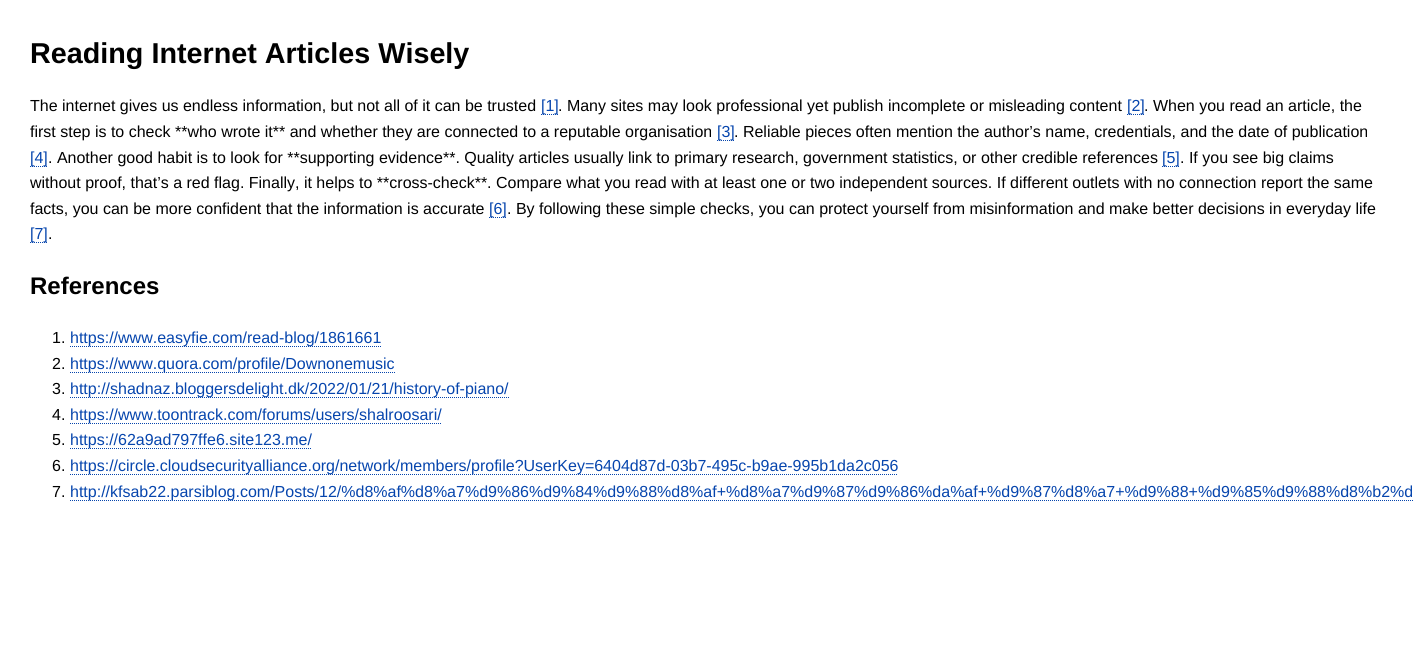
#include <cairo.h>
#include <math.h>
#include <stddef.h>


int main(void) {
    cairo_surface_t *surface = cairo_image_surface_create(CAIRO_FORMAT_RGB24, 1414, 661);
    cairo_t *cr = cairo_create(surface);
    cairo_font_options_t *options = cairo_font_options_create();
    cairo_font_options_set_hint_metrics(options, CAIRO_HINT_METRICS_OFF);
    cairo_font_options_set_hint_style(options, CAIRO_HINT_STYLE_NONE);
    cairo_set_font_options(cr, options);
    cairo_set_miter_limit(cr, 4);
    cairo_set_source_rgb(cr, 1, 1, 1);
    cairo_paint(cr);
    cairo_select_font_face(cr, "Liberation Sans", CAIRO_FONT_SLANT_NORMAL, CAIRO_FONT_WEIGHT_BOLD);
    cairo_set_font_size(cr, 28.75);
    cairo_set_source_rgb(cr, 0, 0, 0);
    cairo_move_to(cr, 30, 63);
    cairo_show_text(cr, "Reading Internet Articles Wisely");
    cairo_select_font_face(cr, "Liberation Sans", CAIRO_FONT_SLANT_NORMAL, CAIRO_FONT_WEIGHT_NORMAL);
    cairo_set_font_size(cr, 16);
    cairo_move_to(cr, 30, 111);
    cairo_show_text(cr, "The internet gives us endless information, but not all of it can be trusted");
    cairo_new_path(cr);
    cairo_move_to(cr, 541, 114.5);
    cairo_line_to(cr, 558, 114.5);
    cairo_set_source_rgb(cr, 0.024, 0.271, 0.678);
    cairo_set_line_width(cr, 1);
    cairo_set_dash(cr, (double[]){1, 1}, 2, 0);
    cairo_stroke(cr);
    cairo_move_to(cr, 541, 111);
    cairo_show_text(cr, "[1]");
    cairo_set_source_rgb(cr, 0, 0, 0);
    cairo_move_to(cr, 558, 111);
    cairo_show_text(cr, ". Many sites may look professional yet publish incomplete or misleading content");
    cairo_new_path(cr);
    cairo_move_to(cr, 1127, 114.5);
    cairo_line_to(cr, 1144, 114.5);
    cairo_set_source_rgb(cr, 0.024, 0.271, 0.678);
    cairo_stroke(cr);
    cairo_move_to(cr, 1127, 111);
    cairo_show_text(cr, "[2]");
    cairo_set_source_rgb(cr, 0, 0, 0);
    cairo_move_to(cr, 1144, 111);
    cairo_show_text(cr, ". When you read an article, the");
    cairo_move_to(cr, 30, 137);
    cairo_show_text(cr, "first step is to check **who wrote it** and whether they are connected to a reputable organisation");
    cairo_new_path(cr);
    cairo_move_to(cr, 717, 140.5);
    cairo_line_to(cr, 734, 140.5);
    cairo_set_source_rgb(cr, 0.024, 0.271, 0.678);
    cairo_stroke(cr);
    cairo_move_to(cr, 717, 137);
    cairo_show_text(cr, "[3]");
    cairo_set_source_rgb(cr, 0, 0, 0);
    cairo_move_to(cr, 734, 137);
    cairo_show_text(cr, ". Reliable pieces often mention the author’s name, credentials, and the date of publication");
    cairo_new_path(cr);
    cairo_move_to(cr, 30, 166.5);
    cairo_line_to(cr, 48, 166.5);
    cairo_set_source_rgb(cr, 0.024, 0.271, 0.678);
    cairo_stroke(cr);
    cairo_move_to(cr, 30, 163);
    cairo_show_text(cr, "[4]");
    cairo_set_source_rgb(cr, 0, 0, 0);
    cairo_move_to(cr, 48, 163);
    cairo_show_text(cr, ". Another good habit is to look for **supporting evidence**. Quality articles usually link to primary research, government statistics, or other credible references");
    cairo_new_path(cr);
    cairo_move_to(cr, 1162, 166.5);
    cairo_line_to(cr, 1180, 166.5);
    cairo_set_source_rgb(cr, 0.024, 0.271, 0.678);
    cairo_stroke(cr);
    cairo_move_to(cr, 1162, 163);
    cairo_show_text(cr, "[5]");
    cairo_set_source_rgb(cr, 0, 0, 0);
    cairo_move_to(cr, 1180, 163);
    cairo_show_text(cr, ". If you see big claims");
    cairo_move_to(cr, 30, 188);
    cairo_show_text(cr, "without proof, that’s a red flag. Finally, it helps to **cross-check**. Compare what you read with at least one or two independent sources. If different outlets with no connection report the same");
    cairo_move_to(cr, 30, 214);
    cairo_show_text(cr, "facts, you can be more confident that the information is accurate");
    cairo_new_path(cr);
    cairo_move_to(cr, 489, 217.5);
    cairo_line_to(cr, 507, 217.5);
    cairo_set_source_rgb(cr, 0.024, 0.271, 0.678);
    cairo_stroke(cr);
    cairo_move_to(cr, 489, 214);
    cairo_show_text(cr, "[6]");
    cairo_set_source_rgb(cr, 0, 0, 0);
    cairo_move_to(cr, 507, 214);
    cairo_show_text(cr, ". By following these simple checks, you can protect yourself from misinformation and make better decisions in everyday life");
    cairo_new_path(cr);
    cairo_move_to(cr, 30, 242.5);
    cairo_line_to(cr, 48, 242.5);
    cairo_set_source_rgb(cr, 0.024, 0.271, 0.678);
    cairo_stroke(cr);
    cairo_move_to(cr, 30, 239);
    cairo_show_text(cr, "[7]");
    cairo_set_source_rgb(cr, 0, 0, 0);
    cairo_move_to(cr, 48, 239);
    cairo_show_text(cr, ".");
    cairo_select_font_face(cr, "Liberation Sans", CAIRO_FONT_SLANT_NORMAL, CAIRO_FONT_WEIGHT_BOLD);
    cairo_set_font_size(cr, 24);
    cairo_move_to(cr, 30, 294);
    cairo_show_text(cr, "References");
    cairo_select_font_face(cr, "Liberation Sans", CAIRO_FONT_SLANT_NORMAL, CAIRO_FONT_WEIGHT_NORMAL);
    cairo_set_font_size(cr, 16);
    cairo_move_to(cr, 52, 343);
    cairo_show_text(cr, "1.");
    cairo_new_path(cr);
    cairo_move_to(cr, 70, 346.5);
    cairo_line_to(cr, 381, 346.5);
    cairo_set_source_rgb(cr, 0.024, 0.271, 0.678);
    cairo_stroke(cr);
    cairo_move_to(cr, 70, 343);
    cairo_show_text(cr, "https://www.easyfie.com/read-blog/1861661");
    cairo_set_source_rgb(cr, 0, 0, 0);
    cairo_move_to(cr, 52, 369);
    cairo_show_text(cr, "2.");
    cairo_new_path(cr);
    cairo_move_to(cr, 70, 372.5);
    cairo_line_to(cr, 395, 372.5);
    cairo_set_source_rgb(cr, 0.024, 0.271, 0.678);
    cairo_stroke(cr);
    cairo_move_to(cr, 70, 369);
    cairo_show_text(cr, "https://www.quora.com/profile/Downonemusic");
    cairo_set_source_rgb(cr, 0, 0, 0);
    cairo_move_to(cr, 52, 394);
    cairo_show_text(cr, "3.");
    cairo_new_path(cr);
    cairo_move_to(cr, 70, 397.5);
    cairo_line_to(cr, 509, 397.5);
    cairo_set_source_rgb(cr, 0.024, 0.271, 0.678);
    cairo_stroke(cr);
    cairo_move_to(cr, 70, 394);
    cairo_show_text(cr, "http://shadnaz.bloggersdelight.dk/2022/01/21/history-of-piano/");
    cairo_set_source_rgb(cr, 0, 0, 0);
    cairo_move_to(cr, 52, 420);
    cairo_show_text(cr, "4.");
    cairo_new_path(cr);
    cairo_move_to(cr, 70, 423.5);
    cairo_line_to(cr, 442, 423.5);
    cairo_set_source_rgb(cr, 0.024, 0.271, 0.678);
    cairo_stroke(cr);
    cairo_move_to(cr, 70, 420);
    cairo_show_text(cr, "https://www.toontrack.com/forums/users/shalroosari/");
    cairo_set_source_rgb(cr, 0, 0, 0);
    cairo_move_to(cr, 52, 445);
    cairo_show_text(cr, "5.");
    cairo_new_path(cr);
    cairo_move_to(cr, 70, 448.5);
    cairo_line_to(cr, 312, 448.5);
    cairo_set_source_rgb(cr, 0.024, 0.271, 0.678);
    cairo_stroke(cr);
    cairo_move_to(cr, 70, 445);
    cairo_show_text(cr, "https://62a9ad797ffe6.site123.me/");
    cairo_set_source_rgb(cr, 0, 0, 0);
    cairo_move_to(cr, 52, 471);
    cairo_show_text(cr, "6.");
    cairo_new_path(cr);
    cairo_move_to(cr, 70, 474.5);
    cairo_line_to(cr, 898, 474.5);
    cairo_set_source_rgb(cr, 0.024, 0.271, 0.678);
    cairo_stroke(cr);
    cairo_move_to(cr, 70, 471);
    cairo_show_text(cr, "https://circle.cloudsecurityalliance.org/network/members/profile?UserKey=6404d87d-03b7-495c-b9ae-995b1da2c056");
    cairo_set_source_rgb(cr, 0, 0, 0);
    cairo_move_to(cr, 52, 497);
    cairo_show_text(cr, "7.");
    cairo_new_path(cr);
    cairo_move_to(cr, 70, 500.5);
    cairo_line_to(cr, 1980, 500.5);
    cairo_set_source_rgb(cr, 0.024, 0.271, 0.678);
    cairo_stroke(cr);
    cairo_move_to(cr, 70, 497);
    cairo_show_text(cr, "http://kfsab22.parsiblog.com/Posts/12/%d8%af%d8%a7%d9%86%d9%84%d9%88%d8%af+%d8%a7%d9%87%d9%86%da%af+%d9%87%d8%a7+%d9%88+%d9%85%d9%88%d8%b2%d");
    cairo_surface_write_to_png(surface, "page.png");
    cairo_font_options_destroy(options);
    cairo_destroy(cr);
    cairo_surface_destroy(surface);
    return 0;
}
